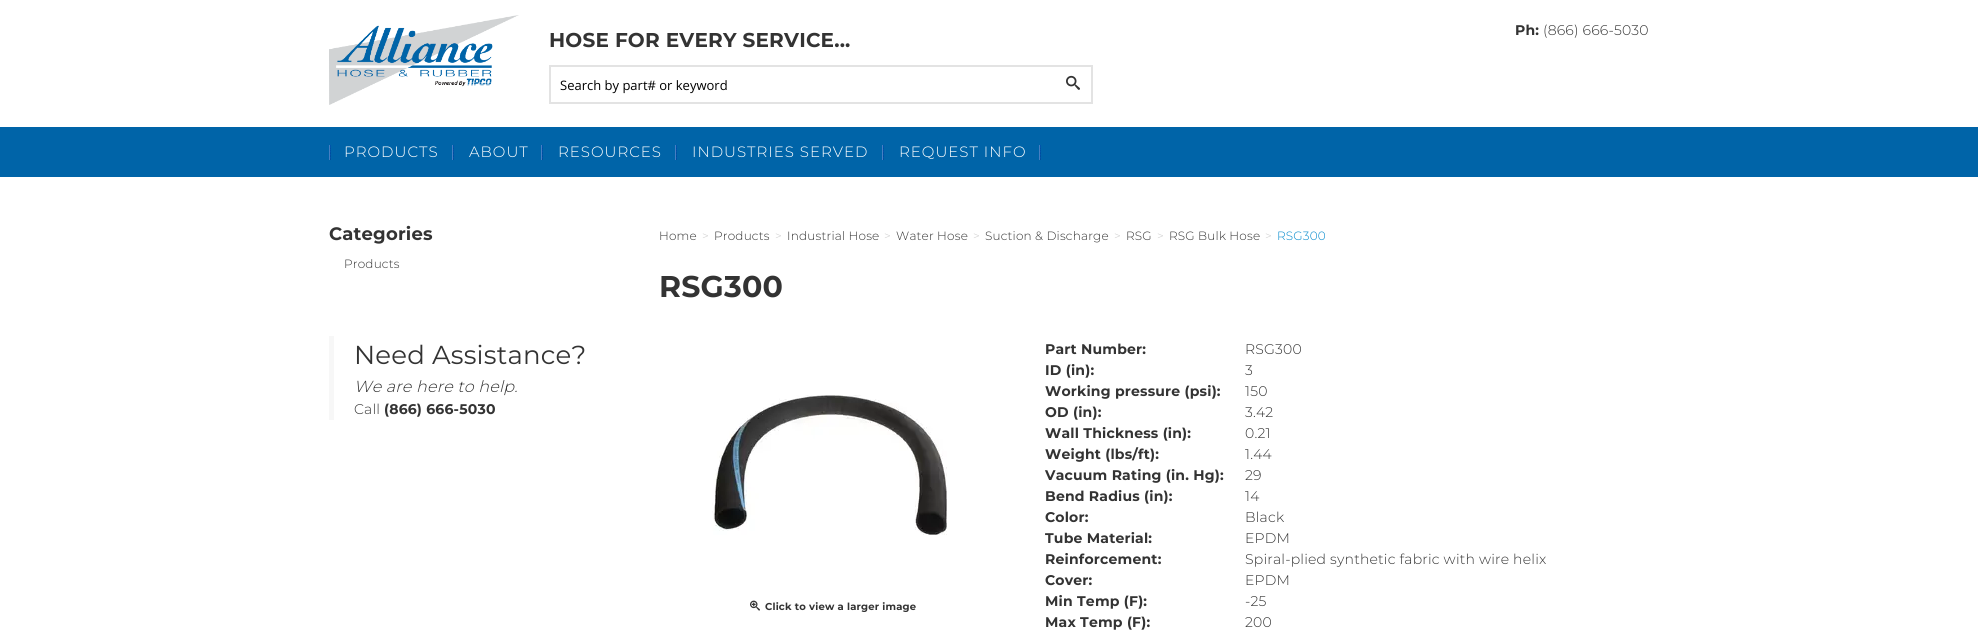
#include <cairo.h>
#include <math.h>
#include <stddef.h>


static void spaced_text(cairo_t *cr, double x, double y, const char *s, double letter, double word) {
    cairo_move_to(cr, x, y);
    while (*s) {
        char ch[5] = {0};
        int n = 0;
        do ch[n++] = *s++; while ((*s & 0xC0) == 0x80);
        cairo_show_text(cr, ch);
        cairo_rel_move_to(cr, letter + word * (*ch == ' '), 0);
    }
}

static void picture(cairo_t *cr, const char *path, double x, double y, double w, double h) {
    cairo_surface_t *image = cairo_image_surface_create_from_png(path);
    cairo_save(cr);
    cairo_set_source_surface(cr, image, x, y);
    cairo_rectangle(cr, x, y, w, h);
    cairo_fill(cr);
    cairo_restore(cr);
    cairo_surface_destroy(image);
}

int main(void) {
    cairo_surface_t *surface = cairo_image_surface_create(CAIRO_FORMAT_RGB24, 1978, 642);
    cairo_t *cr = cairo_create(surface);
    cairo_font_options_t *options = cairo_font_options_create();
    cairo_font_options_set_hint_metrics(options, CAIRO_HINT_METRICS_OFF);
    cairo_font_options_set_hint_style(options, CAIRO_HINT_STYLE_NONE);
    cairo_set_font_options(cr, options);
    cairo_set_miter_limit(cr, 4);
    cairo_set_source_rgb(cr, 1, 1, 1);
    cairo_paint(cr);
    picture(cr, "img1.png", 329, 15, 190, 90);
    cairo_select_font_face(cr, "Montserrat", CAIRO_FONT_SLANT_NORMAL, CAIRO_FONT_WEIGHT_BOLD);
    cairo_set_font_size(cr, 20);
    cairo_set_source_rgb(cr, 0.2, 0.2, 0.2);
    spaced_text(cr, 549, 47, "HOSE FOR EVERY SERVICE...", 0.2, 0);
    cairo_set_font_size(cr, 14);
    spaced_text(cr, 1515, 35, "Ph:", 0.2, 0);
    cairo_select_font_face(cr, "Montserrat Light", CAIRO_FONT_SLANT_NORMAL, CAIRO_FONT_WEIGHT_NORMAL);
    spaced_text(cr, 1543, 35, "(866) 666-5030", 0.2, 0);
    cairo_rectangle(cr, 550, 66, 542, 37);
    cairo_set_source_rgb(cr, 0.89, 0.89, 0.89);
    cairo_stroke(cr);
    cairo_select_font_face(cr, "Open Sans", CAIRO_FONT_SLANT_NORMAL, CAIRO_FONT_WEIGHT_NORMAL);
    cairo_set_font_size(cr, 13);
    cairo_set_source_rgb(cr, 0, 0, 0);
    cairo_move_to(cr, 560, 90);
    cairo_show_text(cr, "Search by part# or keyword");
    picture(cr, "img2.png", 1066, 75, 14, 15);
    cairo_set_source_rgb(cr, 0, 0.392, 0.659);
    cairo_rectangle(cr, 0, 127, 1978, 50);
    cairo_fill(cr);
    picture(cr, "img3.png", 329, 145, 2, 15);
    picture(cr, "img3.png", 452, 145, 2, 15);
    cairo_select_font_face(cr, "Montserrat Light", CAIRO_FONT_SLANT_NORMAL, CAIRO_FONT_WEIGHT_NORMAL);
    cairo_set_font_size(cr, 15);
    cairo_set_source_rgb(cr, 1, 1, 1);
    spaced_text(cr, 344, 157, "PRODUCTS", 1, 0);
    picture(cr, "img3.png", 541, 145, 2, 15);
    spaced_text(cr, 469, 157, "ABOUT", 1, 0);
    picture(cr, "img3.png", 675, 145, 2, 15);
    spaced_text(cr, 558, 157, "RESOURCES", 1, 0);
    picture(cr, "img3.png", 882, 145, 2, 15);
    spaced_text(cr, 692, 157, "INDUSTRIES SERVED", 1, 0);
    picture(cr, "img3.png", 1039, 145, 2, 15);
    spaced_text(cr, 899, 157, "REQUEST INFO", 1, 0);
    cairo_select_font_face(cr, "Montserrat", CAIRO_FONT_SLANT_NORMAL, CAIRO_FONT_WEIGHT_BOLD);
    cairo_set_font_size(cr, 18);
    cairo_set_source_rgb(cr, 0.2, 0.2, 0.2);
    spaced_text(cr, 329, 240, "Categories", 0.2, 0);
    cairo_select_font_face(cr, "Montserrat Light", CAIRO_FONT_SLANT_NORMAL, CAIRO_FONT_WEIGHT_NORMAL);
    cairo_set_font_size(cr, 12);
    spaced_text(cr, 344, 268, "Products", 0.2, 0);
    cairo_set_source_rgb(cr, 0.965, 0.965, 0.965);
    cairo_rectangle(cr, 329, 336, 5, 84);
    cairo_fill(cr);
    cairo_select_font_face(cr, "Montserrat", CAIRO_FONT_SLANT_NORMAL, CAIRO_FONT_WEIGHT_NORMAL);
    cairo_set_font_size(cr, 26);
    cairo_set_source_rgb(cr, 0.2, 0.2, 0.2);
    spaced_text(cr, 354, 364, "Need Assistance?", 0.2, 0);
    cairo_select_font_face(cr, "Montserrat Light", CAIRO_FONT_SLANT_ITALIC, CAIRO_FONT_WEIGHT_NORMAL);
    cairo_set_font_size(cr, 16);
    spaced_text(cr, 354, 392, "We are here to help.", 0.2, 0);
    cairo_select_font_face(cr, "Montserrat Light", CAIRO_FONT_SLANT_NORMAL, CAIRO_FONT_WEIGHT_NORMAL);
    cairo_set_font_size(cr, 14);
    spaced_text(cr, 354, 414, "Call", 0.2, 0);
    cairo_select_font_face(cr, "Montserrat", CAIRO_FONT_SLANT_NORMAL, CAIRO_FONT_WEIGHT_BOLD);
    spaced_text(cr, 384, 414, "(866) 666-5030", 0.2, 0);
    cairo_select_font_face(cr, "Montserrat Light", CAIRO_FONT_SLANT_NORMAL, CAIRO_FONT_WEIGHT_NORMAL);
    cairo_set_font_size(cr, 12);
    spaced_text(cr, 659, 240, "Home", 0.2, 0);
    cairo_set_source_rgb(cr, 0.8, 0.8, 0.8);
    spaced_text(cr, 702, 240, ">", 0.2, 0);
    cairo_set_source_rgb(cr, 0.2, 0.2, 0.2);
    spaced_text(cr, 714, 240, "Products", 0.2, 0);
    cairo_set_source_rgb(cr, 0.8, 0.8, 0.8);
    spaced_text(cr, 775, 240, ">", 0.2, 0);
    cairo_set_source_rgb(cr, 0.2, 0.2, 0.2);
    spaced_text(cr, 787, 240, "Industrial Hose", 0.2, 0);
    cairo_set_source_rgb(cr, 0.8, 0.8, 0.8);
    spaced_text(cr, 884, 240, ">", 0.2, 0);
    cairo_set_source_rgb(cr, 0.2, 0.2, 0.2);
    spaced_text(cr, 896, 240, "Water Hose", 0.2, 0);
    cairo_set_source_rgb(cr, 0.8, 0.8, 0.8);
    spaced_text(cr, 973, 240, ">", 0.2, 0);
    cairo_set_source_rgb(cr, 0.2, 0.2, 0.2);
    spaced_text(cr, 985, 240, "Suction & Discharge", 0.2, 0);
    cairo_set_source_rgb(cr, 0.8, 0.8, 0.8);
    spaced_text(cr, 1114, 240, ">", 0.2, 0);
    cairo_set_source_rgb(cr, 0.2, 0.2, 0.2);
    spaced_text(cr, 1126, 240, "RSG", 0.2, 0);
    cairo_set_source_rgb(cr, 0.8, 0.8, 0.8);
    spaced_text(cr, 1157, 240, ">", 0.2, 0);
    cairo_set_source_rgb(cr, 0.2, 0.2, 0.2);
    spaced_text(cr, 1169, 240, "RSG Bulk Hose", 0.2, 0);
    cairo_set_source_rgb(cr, 0.8, 0.8, 0.8);
    spaced_text(cr, 1265, 240, ">", 0.2, 0);
    cairo_set_source_rgb(cr, 0, 0.533, 0.8);
    spaced_text(cr, 1277, 240, "RSG300", 0.2, 0);
    cairo_select_font_face(cr, "Montserrat", CAIRO_FONT_SLANT_NORMAL, CAIRO_FONT_WEIGHT_BOLD);
    cairo_set_font_size(cr, 30);
    cairo_set_source_rgb(cr, 0.2, 0.2, 0.2);
    spaced_text(cr, 659, 297, "RSG300", 0.2, 0);
    picture(cr, "img4.png", 712, 395, 235, 140);
    picture(cr, "img5.png", 750, 600, 10, 11);
    cairo_set_font_size(cr, 10);
    spaced_text(cr, 765, 610, "Click to view a larger image", 0.2, 0);
    cairo_set_font_size(cr, 14);
    spaced_text(cr, 1045, 354, "Part Number:", 0.2, 0);
    cairo_select_font_face(cr, "Montserrat Light", CAIRO_FONT_SLANT_NORMAL, CAIRO_FONT_WEIGHT_NORMAL);
    spaced_text(cr, 1245, 354, "RSG300", 0.2, 0);
    cairo_select_font_face(cr, "Montserrat", CAIRO_FONT_SLANT_NORMAL, CAIRO_FONT_WEIGHT_BOLD);
    spaced_text(cr, 1045, 375, "ID (in):", 0.2, 0);
    cairo_select_font_face(cr, "Montserrat Light", CAIRO_FONT_SLANT_NORMAL, CAIRO_FONT_WEIGHT_NORMAL);
    spaced_text(cr, 1245, 375, "3", 0.2, 0);
    cairo_select_font_face(cr, "Montserrat", CAIRO_FONT_SLANT_NORMAL, CAIRO_FONT_WEIGHT_BOLD);
    spaced_text(cr, 1045, 396, "Working pressure (psi):", 0.2, 0);
    cairo_select_font_face(cr, "Montserrat Light", CAIRO_FONT_SLANT_NORMAL, CAIRO_FONT_WEIGHT_NORMAL);
    spaced_text(cr, 1245, 396, "150", 0.2, 0);
    cairo_select_font_face(cr, "Montserrat", CAIRO_FONT_SLANT_NORMAL, CAIRO_FONT_WEIGHT_BOLD);
    spaced_text(cr, 1045, 417, "OD (in):", 0.2, 0);
    cairo_select_font_face(cr, "Montserrat Light", CAIRO_FONT_SLANT_NORMAL, CAIRO_FONT_WEIGHT_NORMAL);
    spaced_text(cr, 1245, 417, "3.42", 0.2, 0);
    cairo_select_font_face(cr, "Montserrat", CAIRO_FONT_SLANT_NORMAL, CAIRO_FONT_WEIGHT_BOLD);
    spaced_text(cr, 1045, 438, "Wall Thickness (in):", 0.2, 0);
    cairo_select_font_face(cr, "Montserrat Light", CAIRO_FONT_SLANT_NORMAL, CAIRO_FONT_WEIGHT_NORMAL);
    spaced_text(cr, 1245, 438, "0.21", 0.2, 0);
    cairo_select_font_face(cr, "Montserrat", CAIRO_FONT_SLANT_NORMAL, CAIRO_FONT_WEIGHT_BOLD);
    spaced_text(cr, 1045, 459, "Weight (lbs/ft):", 0.2, 0);
    cairo_select_font_face(cr, "Montserrat Light", CAIRO_FONT_SLANT_NORMAL, CAIRO_FONT_WEIGHT_NORMAL);
    spaced_text(cr, 1245, 459, "1.44", 0.2, 0);
    cairo_select_font_face(cr, "Montserrat", CAIRO_FONT_SLANT_NORMAL, CAIRO_FONT_WEIGHT_BOLD);
    spaced_text(cr, 1045, 480, "Vacuum Rating (in. Hg):", 0.2, 0);
    cairo_select_font_face(cr, "Montserrat Light", CAIRO_FONT_SLANT_NORMAL, CAIRO_FONT_WEIGHT_NORMAL);
    spaced_text(cr, 1245, 480, "29", 0.2, 0);
    cairo_select_font_face(cr, "Montserrat", CAIRO_FONT_SLANT_NORMAL, CAIRO_FONT_WEIGHT_BOLD);
    spaced_text(cr, 1045, 501, "Bend Radius (in):", 0.2, 0);
    cairo_select_font_face(cr, "Montserrat Light", CAIRO_FONT_SLANT_NORMAL, CAIRO_FONT_WEIGHT_NORMAL);
    spaced_text(cr, 1245, 501, "14", 0.2, 0);
    cairo_select_font_face(cr, "Montserrat", CAIRO_FONT_SLANT_NORMAL, CAIRO_FONT_WEIGHT_BOLD);
    spaced_text(cr, 1045, 522, "Color:", 0.2, 0);
    cairo_select_font_face(cr, "Montserrat Light", CAIRO_FONT_SLANT_NORMAL, CAIRO_FONT_WEIGHT_NORMAL);
    spaced_text(cr, 1245, 522, "Black", 0.2, 0);
    cairo_select_font_face(cr, "Montserrat", CAIRO_FONT_SLANT_NORMAL, CAIRO_FONT_WEIGHT_BOLD);
    spaced_text(cr, 1045, 543, "Tube Material:", 0.2, 0);
    cairo_select_font_face(cr, "Montserrat Light", CAIRO_FONT_SLANT_NORMAL, CAIRO_FONT_WEIGHT_NORMAL);
    spaced_text(cr, 1245, 543, "EPDM", 0.2, 0);
    cairo_select_font_face(cr, "Montserrat", CAIRO_FONT_SLANT_NORMAL, CAIRO_FONT_WEIGHT_BOLD);
    spaced_text(cr, 1045, 564, "Reinforcement:", 0.2, 0);
    cairo_select_font_face(cr, "Montserrat Light", CAIRO_FONT_SLANT_NORMAL, CAIRO_FONT_WEIGHT_NORMAL);
    spaced_text(cr, 1245, 564, "Spiral-plied synthetic fabric with wire helix", 0.2, 0);
    cairo_select_font_face(cr, "Montserrat", CAIRO_FONT_SLANT_NORMAL, CAIRO_FONT_WEIGHT_BOLD);
    spaced_text(cr, 1045, 585, "Cover:", 0.2, 0);
    cairo_select_font_face(cr, "Montserrat Light", CAIRO_FONT_SLANT_NORMAL, CAIRO_FONT_WEIGHT_NORMAL);
    spaced_text(cr, 1245, 585, "EPDM", 0.2, 0);
    cairo_select_font_face(cr, "Montserrat", CAIRO_FONT_SLANT_NORMAL, CAIRO_FONT_WEIGHT_BOLD);
    spaced_text(cr, 1045, 606, "Min Temp (F):", 0.2, 0);
    cairo_select_font_face(cr, "Montserrat Light", CAIRO_FONT_SLANT_NORMAL, CAIRO_FONT_WEIGHT_NORMAL);
    spaced_text(cr, 1245, 606, "-25", 0.2, 0);
    cairo_select_font_face(cr, "Montserrat", CAIRO_FONT_SLANT_NORMAL, CAIRO_FONT_WEIGHT_BOLD);
    spaced_text(cr, 1045, 627, "Max Temp (F):", 0.2, 0);
    cairo_select_font_face(cr, "Montserrat Light", CAIRO_FONT_SLANT_NORMAL, CAIRO_FONT_WEIGHT_NORMAL);
    spaced_text(cr, 1245, 627, "200", 0.2, 0);
    cairo_surface_write_to_png(surface, "page.png");
    cairo_font_options_destroy(options);
    cairo_destroy(cr);
    cairo_surface_destroy(surface);
    return 0;
}
